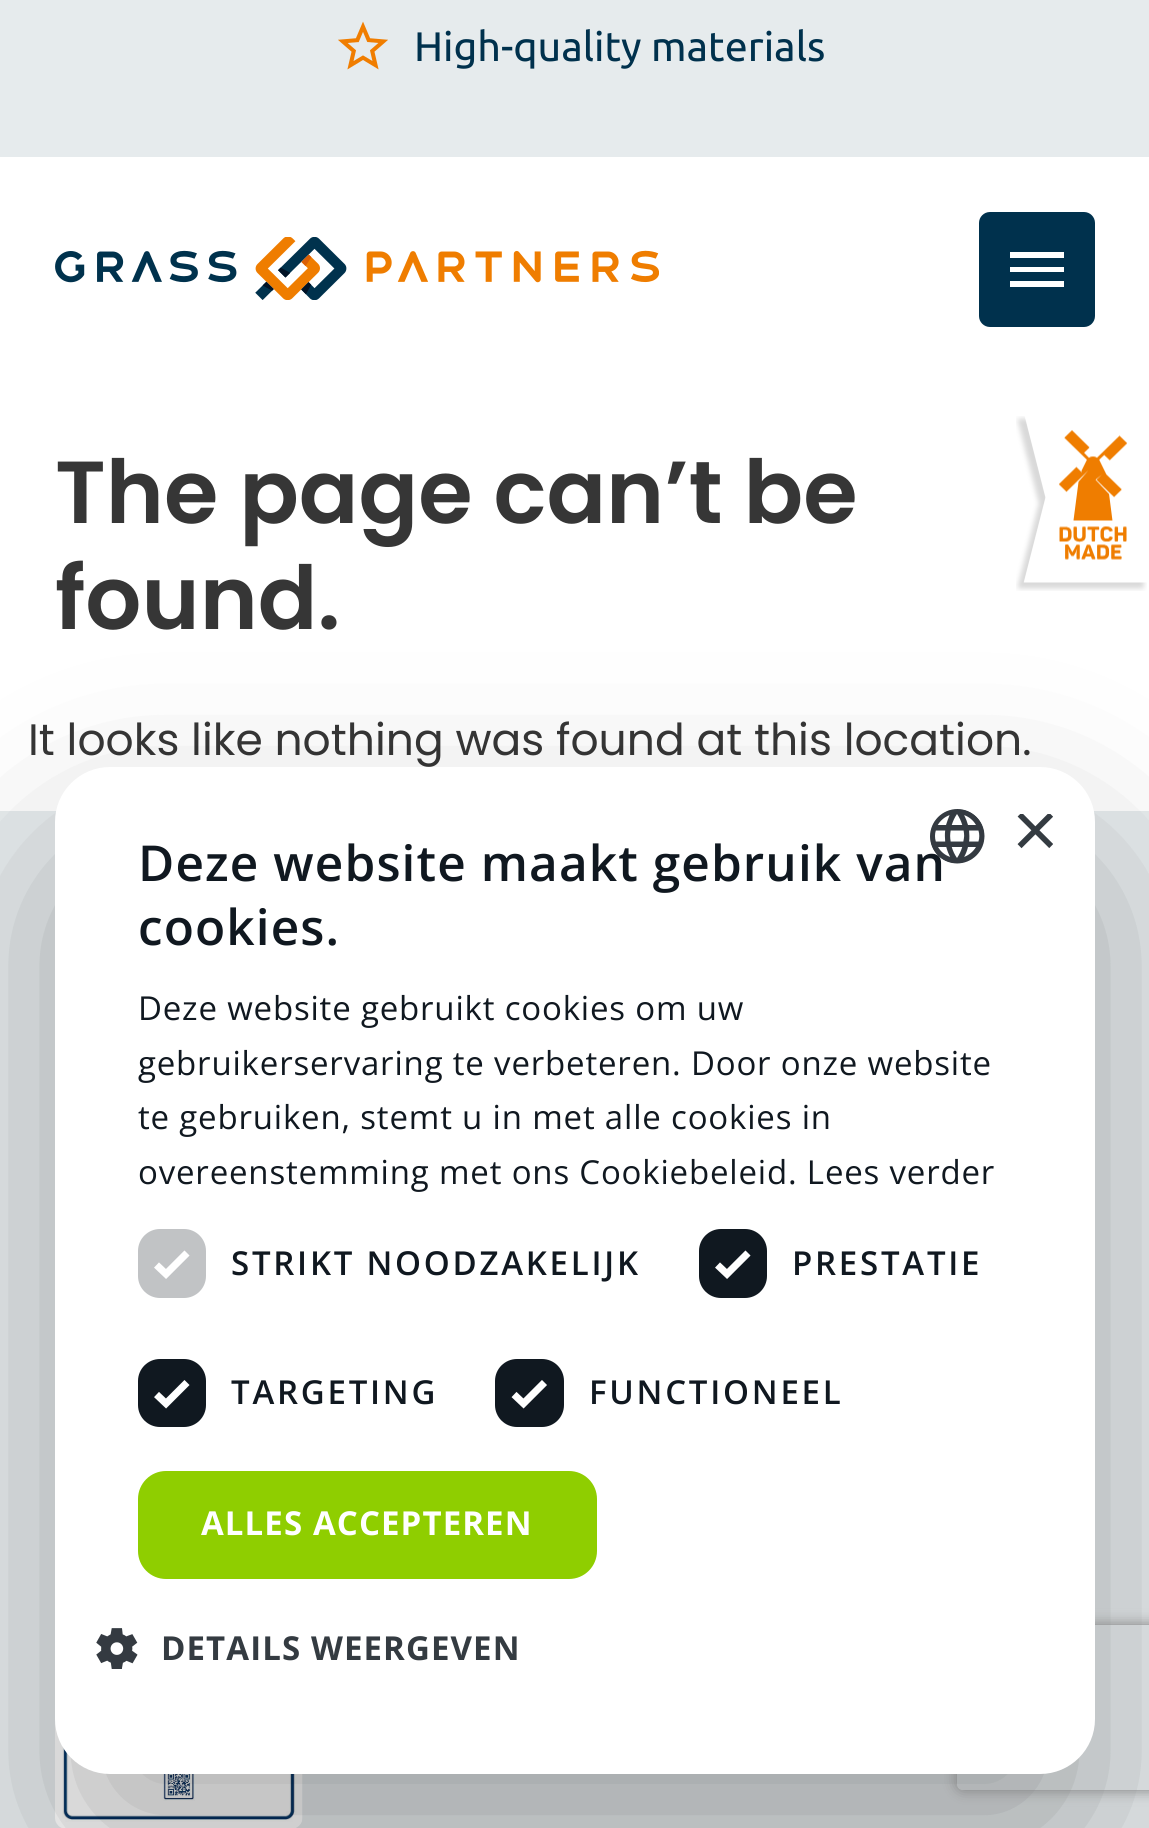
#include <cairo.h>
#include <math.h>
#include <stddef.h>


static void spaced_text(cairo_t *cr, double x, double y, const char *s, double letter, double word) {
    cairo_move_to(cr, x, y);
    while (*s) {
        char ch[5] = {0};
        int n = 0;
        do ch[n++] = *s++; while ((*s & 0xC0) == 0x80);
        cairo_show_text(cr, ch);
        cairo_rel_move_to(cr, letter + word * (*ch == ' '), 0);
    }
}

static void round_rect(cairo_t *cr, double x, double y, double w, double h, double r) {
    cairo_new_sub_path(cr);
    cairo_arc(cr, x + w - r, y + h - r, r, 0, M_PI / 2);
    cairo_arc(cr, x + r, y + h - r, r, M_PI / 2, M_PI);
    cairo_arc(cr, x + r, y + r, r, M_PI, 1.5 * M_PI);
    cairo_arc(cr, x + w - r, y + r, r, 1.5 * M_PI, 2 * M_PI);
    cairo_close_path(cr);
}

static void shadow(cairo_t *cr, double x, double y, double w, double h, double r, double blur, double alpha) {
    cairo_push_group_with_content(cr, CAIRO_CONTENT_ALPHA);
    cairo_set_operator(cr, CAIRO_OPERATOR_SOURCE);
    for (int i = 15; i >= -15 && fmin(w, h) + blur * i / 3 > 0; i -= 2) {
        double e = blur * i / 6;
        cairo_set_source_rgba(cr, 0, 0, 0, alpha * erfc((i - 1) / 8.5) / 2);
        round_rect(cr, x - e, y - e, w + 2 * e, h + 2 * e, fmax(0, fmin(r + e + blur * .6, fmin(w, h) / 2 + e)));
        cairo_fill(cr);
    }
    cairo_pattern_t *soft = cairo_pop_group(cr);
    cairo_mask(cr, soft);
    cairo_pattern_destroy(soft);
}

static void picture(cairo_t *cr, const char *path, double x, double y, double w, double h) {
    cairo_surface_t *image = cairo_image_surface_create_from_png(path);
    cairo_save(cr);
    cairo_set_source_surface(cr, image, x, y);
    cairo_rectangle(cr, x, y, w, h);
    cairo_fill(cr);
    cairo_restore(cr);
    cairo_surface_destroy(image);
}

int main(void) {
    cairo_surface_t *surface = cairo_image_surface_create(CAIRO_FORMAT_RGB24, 1149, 1828);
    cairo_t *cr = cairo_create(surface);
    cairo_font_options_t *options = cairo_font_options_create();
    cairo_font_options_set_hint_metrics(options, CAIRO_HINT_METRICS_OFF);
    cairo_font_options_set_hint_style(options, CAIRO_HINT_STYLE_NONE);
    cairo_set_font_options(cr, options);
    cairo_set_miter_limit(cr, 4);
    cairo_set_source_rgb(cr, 1, 1, 1);
    cairo_paint(cr);
    cairo_set_source_rgb(cr, 0.902, 0.918, 0.929);
    cairo_rectangle(cr, 0, 0, 1149, 157);
    cairo_fill(cr);
    picture(cr, "img1.png", 338, 21, 50, 49);
    cairo_select_font_face(cr, "Ubuntu", CAIRO_FONT_SLANT_NORMAL, CAIRO_FONT_WEIGHT_NORMAL);
    cairo_set_font_size(cr, 41.25);
    cairo_set_source_rgb(cr, 0, 0.192, 0.302);
    cairo_move_to(cr, 414, 61);
    cairo_show_text(cr, "High-quality materials");
    picture(cr, "img2.png", 55, 237, 604, 63);
    round_rect(cr, 979, 212, 116, 115, 11);
    cairo_fill(cr);
    cairo_set_source_rgb(cr, 1, 1, 1);
    cairo_new_path(cr);
    cairo_move_to(cr, 1010, 252);
    cairo_line_to(cr, 1064, 252);
    cairo_line_to(cr, 1064, 258);
    cairo_line_to(cr, 1010, 258);
    cairo_close_path(cr);
    cairo_move_to(cr, 1010, 272);
    cairo_line_to(cr, 1010, 267);
    cairo_line_to(cr, 1064, 267);
    cairo_line_to(cr, 1064, 272);
    cairo_close_path(cr);
    cairo_move_to(cr, 1010, 287);
    cairo_line_to(cr, 1010, 281);
    cairo_line_to(cr, 1064, 281);
    cairo_line_to(cr, 1064, 287);
    cairo_close_path(cr);
    cairo_fill(cr);
    picture(cr, "img3.png", 1016, 416, 131, 175);
    cairo_select_font_face(cr, "Poppins SemiBold", CAIRO_FONT_SLANT_NORMAL, CAIRO_FONT_WEIGHT_NORMAL);
    cairo_set_font_size(cr, 88);
    cairo_set_source_rgb(cr, 0.212, 0.212, 0.212);
    cairo_move_to(cr, 55, 523);
    cairo_show_text(cr, "The page can’t be");
    cairo_move_to(cr, 55, 629);
    cairo_show_text(cr, "found.");
    cairo_select_font_face(cr, "Poppins", CAIRO_FONT_SLANT_NORMAL, CAIRO_FONT_WEIGHT_NORMAL);
    cairo_set_font_size(cr, 44);
    cairo_move_to(cr, 28, 755);
    cairo_show_text(cr, "It looks like nothing was found at this location.");
    cairo_set_source_rgb(cr, 0.902, 0.918, 0.929);
    cairo_rectangle(cr, 0, 811, 1149, 1017);
    cairo_fill(cr);
    picture(cr, "img4.png", 55, 1719, 248, 109);
    cairo_set_source_rgb(cr, 0, 0, 0);
    shadow(cr, 55, 855, 1040, 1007, 55, 93.5, 0.3);
    cairo_save(cr);
    cairo_set_fill_rule(cr, CAIRO_FILL_RULE_EVEN_ODD);
    cairo_new_path(cr);
    cairo_move_to(cr, 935, 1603);
    cairo_line_to(cr, 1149, 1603);
    cairo_line_to(cr, 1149, 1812);
    cairo_line_to(cr, 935, 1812);
    cairo_close_path(cr);
    cairo_move_to(cr, 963, 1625);
    cairo_line_to(cr, 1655, 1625);
    cairo_curve_to(cr, 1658.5, 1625, 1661, 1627.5, 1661, 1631);
    cairo_line_to(cr, 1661, 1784);
    cairo_curve_to(cr, 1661, 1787.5, 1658.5, 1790, 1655, 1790);
    cairo_line_to(cr, 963, 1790);
    cairo_curve_to(cr, 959.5, 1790, 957, 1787.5, 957, 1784);
    cairo_line_to(cr, 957, 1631);
    cairo_curve_to(cr, 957, 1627.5, 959.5, 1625, 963, 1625);
    cairo_close_path(cr);
    cairo_clip(cr);
    cairo_set_source_rgb(cr, 0.502, 0.502, 0.502);
    shadow(cr, 957, 1625, 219, 165, 6, 7, 1);
    cairo_restore(cr);
    cairo_set_source_rgb(cr, 1, 1, 1);
    round_rect(cr, 55, 767, 1040, 1007, 55);
    cairo_fill(cr);
    picture(cr, "img5.png", 930, 809, 55, 55);
    cairo_save(cr);
    cairo_rectangle(cr, 1012, 814, 41, 41);
    cairo_clip(cr);
    cairo_select_font_face(cr, "Liberation Sans", CAIRO_FONT_SLANT_NORMAL, CAIRO_FONT_WEIGHT_NORMAL);
    cairo_set_font_size(cr, 80);
    cairo_set_source_rgb(cr, 0.204, 0.231, 0.255);
    cairo_move_to(cr, 1012, 857);
    cairo_show_text(cr, "×");
    cairo_restore(cr);
    cairo_select_font_face(cr, "Open Sans SemiBold", CAIRO_FONT_SLANT_NORMAL, CAIRO_FONT_WEIGHT_NORMAL);
    cairo_set_font_size(cr, 49.5);
    cairo_set_source_rgb(cr, 0.063, 0.094, 0.125);
    spaced_text(cr, 138, 881, "Deze website maakt gebruik van", 1.1, 0);
    spaced_text(cr, 138, 945, "cookies.", 1.1, 0);
    cairo_select_font_face(cr, "Open Sans", CAIRO_FONT_SLANT_NORMAL, CAIRO_FONT_WEIGHT_NORMAL);
    cairo_set_font_size(cr, 33);
    spaced_text(cr, 138, 1020, "Deze website gebruikt cookies om uw", 0.82, 0);
    spaced_text(cr, 138, 1075, "gebruikerservaring te verbeteren. Door onze website", 0.82, 0);
    spaced_text(cr, 138, 1129, "te gebruiken, stemt u in met alle cookies in", 0.82, 0);
    spaced_text(cr, 138, 1184, "overeenstemming met ons Cookiebeleid. Lees verder", 0.82, 0);
    cairo_set_source_rgb(cr, 0.757, 0.765, 0.773);
    round_rect(cr, 138, 1229, 68, 69, 22);
    cairo_fill(cr);
    cairo_new_path(cr);
    cairo_move_to(cr, 156.5, 1265);
    cairo_line_to(cr, 166, 1274);
    cairo_line_to(cr, 187, 1253);
    cairo_set_source_rgb(cr, 1, 1, 1);
    cairo_set_line_width(cr, 7.2);
    cairo_stroke(cr);
    cairo_select_font_face(cr, "Open Sans SemiBold", CAIRO_FONT_SLANT_NORMAL, CAIRO_FONT_WEIGHT_NORMAL);
    cairo_set_source_rgb(cr, 0.063, 0.094, 0.125);
    spaced_text(cr, 231, 1275, "STRIKT NOODZAKELIJK", 2.75, 0);
    round_rect(cr, 702, 1232, 62, 63, 19);
    cairo_fill_preserve(cr);
    cairo_set_line_width(cr, 6);
    cairo_stroke(cr);
    cairo_new_path(cr);
    cairo_move_to(cr, 717.5, 1265);
    cairo_line_to(cr, 727, 1274);
    cairo_line_to(cr, 748, 1253);
    cairo_set_source_rgb(cr, 1, 1, 1);
    cairo_set_line_width(cr, 7.2);
    cairo_stroke(cr);
    cairo_set_source_rgb(cr, 0.063, 0.094, 0.125);
    spaced_text(cr, 792, 1275, "PRESTATIE", 2.75, 0);
    round_rect(cr, 141, 1362, 62, 62, 19);
    cairo_fill_preserve(cr);
    cairo_set_line_width(cr, 6);
    cairo_stroke(cr);
    cairo_new_path(cr);
    cairo_move_to(cr, 156.5, 1394.5);
    cairo_line_to(cr, 166, 1403.5);
    cairo_line_to(cr, 187, 1382.5);
    cairo_set_source_rgb(cr, 1, 1, 1);
    cairo_set_line_width(cr, 7.2);
    cairo_stroke(cr);
    cairo_set_source_rgb(cr, 0.063, 0.094, 0.125);
    spaced_text(cr, 231, 1404, "TARGETING", 2.75, 0);
    round_rect(cr, 498, 1362, 63, 62, 19);
    cairo_fill_preserve(cr);
    cairo_set_line_width(cr, 6);
    cairo_stroke(cr);
    cairo_new_path(cr);
    cairo_move_to(cr, 514, 1394.5);
    cairo_line_to(cr, 523.5, 1403.5);
    cairo_line_to(cr, 544.5, 1382.5);
    cairo_set_source_rgb(cr, 1, 1, 1);
    cairo_set_line_width(cr, 7.2);
    cairo_stroke(cr);
    cairo_set_source_rgb(cr, 0.063, 0.094, 0.125);
    spaced_text(cr, 589, 1404, "FUNCTIONEEL", 2.75, 0);
    cairo_set_source_rgb(cr, 0.561, 0.808, 0);
    round_rect(cr, 138, 1471, 459, 108, 28);
    cairo_fill(cr);
    cairo_select_font_face(cr, "Open Sans", CAIRO_FONT_SLANT_NORMAL, CAIRO_FONT_WEIGHT_BOLD);
    cairo_set_source_rgb(cr, 1, 1, 1);
    spaced_text(cr, 201, 1535, "ALLES ACCEPTEREN", 1.1, 0);
    picture(cr, "img6.png", 96, 1628, 42, 41);
    cairo_set_source_rgb(cr, 0.204, 0.231, 0.255);
    spaced_text(cr, 161, 1660, "DETAILS WEERGEVEN", 1.1, 0);
    cairo_surface_write_to_png(surface, "page.png");
    cairo_font_options_destroy(options);
    cairo_destroy(cr);
    cairo_surface_destroy(surface);
    return 0;
}
